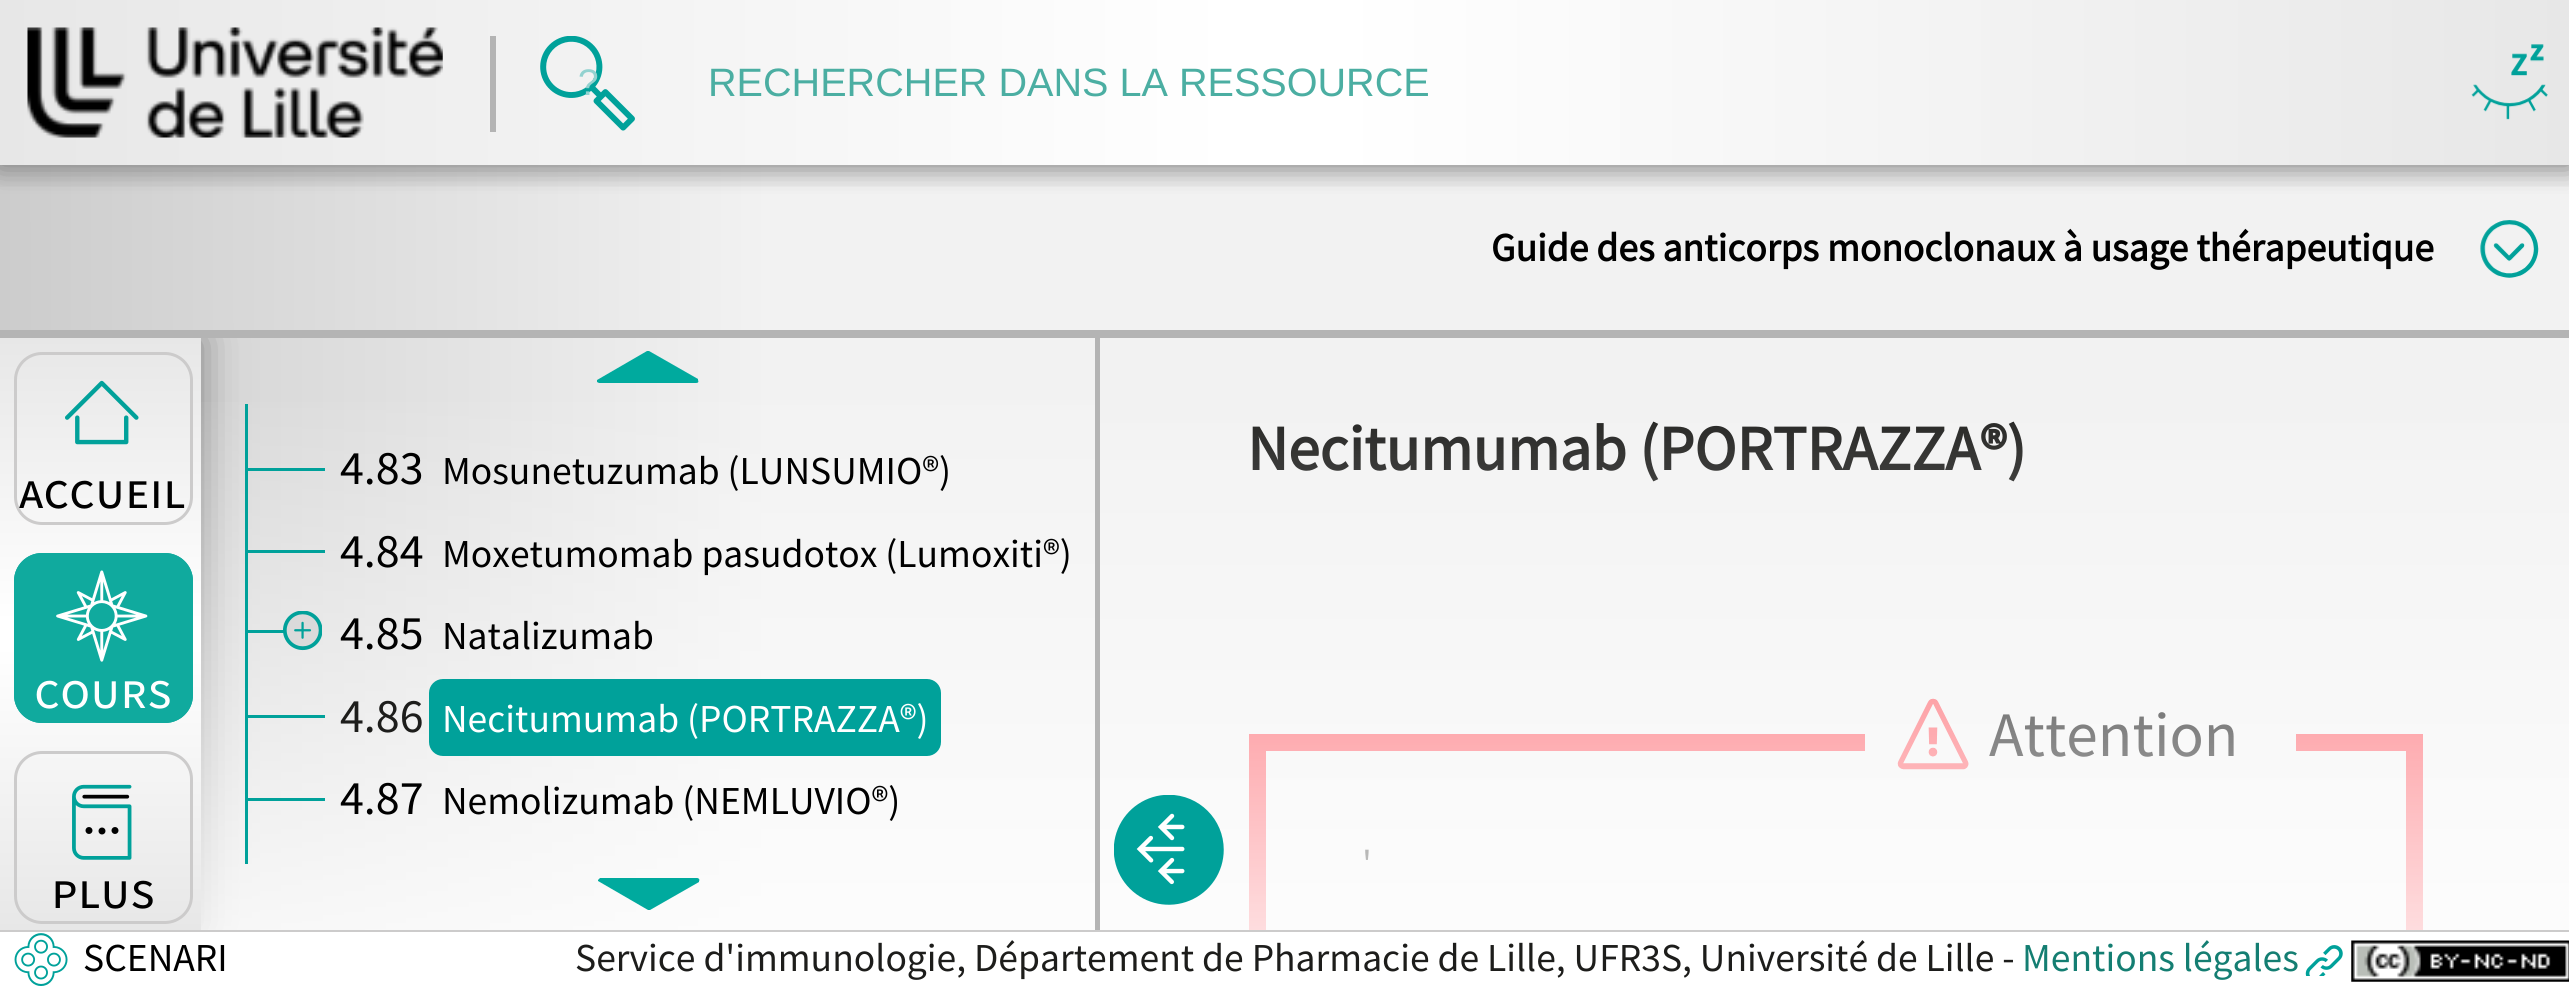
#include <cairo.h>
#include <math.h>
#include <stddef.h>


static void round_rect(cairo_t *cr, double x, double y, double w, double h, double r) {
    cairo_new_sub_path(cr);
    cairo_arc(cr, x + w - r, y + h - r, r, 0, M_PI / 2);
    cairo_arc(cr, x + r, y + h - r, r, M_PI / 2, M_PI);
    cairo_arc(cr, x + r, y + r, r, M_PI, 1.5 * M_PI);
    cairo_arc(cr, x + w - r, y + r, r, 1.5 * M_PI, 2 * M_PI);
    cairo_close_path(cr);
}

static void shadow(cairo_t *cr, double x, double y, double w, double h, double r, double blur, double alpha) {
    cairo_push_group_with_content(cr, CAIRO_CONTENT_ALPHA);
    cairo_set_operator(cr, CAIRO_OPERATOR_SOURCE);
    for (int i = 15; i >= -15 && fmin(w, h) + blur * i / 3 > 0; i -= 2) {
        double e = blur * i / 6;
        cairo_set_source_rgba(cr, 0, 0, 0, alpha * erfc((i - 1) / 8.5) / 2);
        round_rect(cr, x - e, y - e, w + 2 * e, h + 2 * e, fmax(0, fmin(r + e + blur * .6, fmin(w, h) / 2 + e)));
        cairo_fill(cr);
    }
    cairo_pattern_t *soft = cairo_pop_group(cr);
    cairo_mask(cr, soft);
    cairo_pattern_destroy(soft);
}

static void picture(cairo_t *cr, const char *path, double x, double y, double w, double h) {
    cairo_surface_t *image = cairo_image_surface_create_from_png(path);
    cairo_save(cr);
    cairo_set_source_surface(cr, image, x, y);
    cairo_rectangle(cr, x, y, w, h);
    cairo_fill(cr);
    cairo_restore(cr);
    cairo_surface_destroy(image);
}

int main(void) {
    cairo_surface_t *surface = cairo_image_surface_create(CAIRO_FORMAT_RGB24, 2569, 986);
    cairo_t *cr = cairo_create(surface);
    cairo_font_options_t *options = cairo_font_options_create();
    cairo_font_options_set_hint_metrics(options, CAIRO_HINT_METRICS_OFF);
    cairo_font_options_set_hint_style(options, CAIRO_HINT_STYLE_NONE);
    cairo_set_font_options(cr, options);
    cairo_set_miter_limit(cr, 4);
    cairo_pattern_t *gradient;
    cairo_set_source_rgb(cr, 1, 1, 1);
    cairo_paint(cr);
    gradient = cairo_pattern_create_linear(0, 169, 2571, 169);
    cairo_pattern_add_color_stop_rgba(gradient, 0, 0.906, 0.906, 0.906, 1);
    cairo_pattern_add_color_stop_rgba(gradient, 0.48, 1, 1, 1, 1);
    cairo_pattern_add_color_stop_rgba(gradient, 0.52, 1, 1, 1, 1);
    cairo_pattern_add_color_stop_rgba(gradient, 1, 0.906, 0.906, 0.906, 1);
    cairo_set_source(cr, gradient);
    cairo_pattern_destroy(gradient);
    cairo_rectangle(cr, 0, 0, 2569, 165);
    cairo_fill(cr);
    gradient = cairo_pattern_create_linear(0, 248, 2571, 247);
    cairo_pattern_add_color_stop_rgba(gradient, 0, 0.8, 0.8, 0.8, 1);
    cairo_pattern_add_color_stop_rgba(gradient, 0.3, 0.949, 0.949, 0.949, 1);
    cairo_set_source(cr, gradient);
    cairo_pattern_destroy(gradient);
    cairo_rectangle(cr, 0, 165, 2569, 165);
    cairo_fill(cr);
    gradient = cairo_pattern_create_linear(1286, 165, 1286, 330);
    cairo_pattern_add_color_stop_rgba(gradient, 0, 0, 0, 0, 0.1);
    cairo_pattern_add_color_stop_rgba(gradient, 0.17, 0, 0, 0, 0);
    cairo_set_source(cr, gradient);
    cairo_pattern_destroy(gradient);
    cairo_rectangle(cr, 0, 165, 2569, 22);
    cairo_fill(cr);
    cairo_save(cr);
    cairo_rectangle(cr, 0, 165, 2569, 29);
    cairo_clip(cr);
    cairo_set_source_rgb(cr, 0.502, 0.502, 0.502);
    shadow(cr, 0, 0, 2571, 165, 0, 14, 1);
    cairo_restore(cr);
    picture(cr, "img1.png", 27, 27, 416, 111);
    cairo_set_source_rgb(cr, 0.706, 0.706, 0.706);
    cairo_rectangle(cr, 490, 36, 6, 96);
    cairo_fill(cr);
    picture(cr, "img2.png", 540, 36, 95, 95);
    cairo_select_font_face(cr, "Liberation Sans", CAIRO_FONT_SLANT_NORMAL, CAIRO_FONT_WEIGHT_NORMAL);
    cairo_set_font_size(cr, 37);
    cairo_set_source_rgb(cr, 0.576, 0.824, 0.816);
    cairo_move_to(cr, 578, 95);
    cairo_show_text(cr, "?");
    cairo_set_font_size(cr, 39.6);
    cairo_set_source_rgb(cr, 0.294, 0.682, 0.635);
    cairo_move_to(cr, 708, 96);
    cairo_show_text(cr, "RECHERCHER DANS LA RESSOURCE");
    picture(cr, "img3.png", 2471, 44, 77, 76);
    cairo_set_source_rgb(cr, 0.706, 0.706, 0.706);
    cairo_rectangle(cr, 0, 330, 2569, 8);
    cairo_fill(cr);
    cairo_select_font_face(cr, "Source Sans Pro", CAIRO_FONT_SLANT_NORMAL, CAIRO_FONT_WEIGHT_BOLD);
    cairo_set_source_rgb(cr, 0, 0, 0);
    cairo_move_to(cr, 1491, 261);
    cairo_show_text(cr, "Guide des anticorps monoclonaux à usage thérapeutique");
    picture(cr, "img4.png", 2480, 220, 59, 58);
    gradient = cairo_pattern_create_linear(0, 634, 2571, 634);
    cairo_pattern_add_color_stop_rgba(gradient, 0, 0.804, 0.804, 0.804, 1);
    cairo_pattern_add_color_stop_rgba(gradient, 0.3, 0.949, 0.949, 0.949, 1);
    cairo_set_source(cr, gradient);
    cairo_pattern_destroy(gradient);
    cairo_rectangle(cr, 201, 338, 2368, 592);
    cairo_fill(cr);
    cairo_set_source_rgb(cr, 0.8, 0.796, 0.796);
    cairo_rectangle(cr, 0, 930, 2569, 2);
    cairo_fill(cr);
    cairo_save(cr);
    cairo_rectangle(cr, 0, 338, 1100, 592);
    cairo_clip(cr);
    cairo_set_source_rgb(cr, 0.502, 0.502, 0.502);
    shadow(cr, 0, 338, 201, 592, 0, 20.5, 1);
    cairo_restore(cr);
    gradient = cairo_pattern_create_linear(100, 930, 100, 338);
    cairo_pattern_add_color_stop_rgba(gradient, 0, 0.906, 0.906, 0.906, 1);
    cairo_pattern_add_color_stop_rgba(gradient, 0.48, 1, 1, 1, 1);
    cairo_pattern_add_color_stop_rgba(gradient, 0.52, 1, 1, 1, 1);
    cairo_pattern_add_color_stop_rgba(gradient, 1, 0.906, 0.906, 0.906, 1);
    cairo_set_source(cr, gradient);
    cairo_pattern_destroy(gradient);
    cairo_rectangle(cr, 0, 338, 201, 592);
    cairo_fill(cr);
    picture(cr, "img5.png", 65, 380, 74, 65);
    round_rect(cr, 15.5, 353.5, 176, 170, 26.5);
    cairo_set_source_rgb(cr, 0.8, 0.796, 0.796);
    cairo_set_line_width(cr, 3);
    cairo_stroke(cr);
    cairo_select_font_face(cr, "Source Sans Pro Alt", CAIRO_FONT_SLANT_NORMAL, CAIRO_FONT_WEIGHT_NORMAL);
    cairo_set_font_size(cr, 51.5);
    cairo_set_source_rgb(cr, 0, 0, 0);
    cairo_move_to(cr, 19, 508);
    cairo_show_text(cr, "Accueil");
    cairo_set_source_rgb(cr, 0.063, 0.667, 0.62);
    round_rect(cr, 14, 553, 179, 170, 28);
    cairo_fill(cr);
    picture(cr, "img6.png", 56, 570, 92, 92);
    round_rect(cr, 15.5, 554.5, 176, 167, 26.5);
    cairo_stroke(cr);
    cairo_set_source_rgb(cr, 1, 1, 1);
    cairo_move_to(cr, 34, 708);
    cairo_show_text(cr, "cours");
    picture(cr, "img7.png", 72, 784, 60, 76);
    round_rect(cr, 15.5, 752.5, 176, 170, 26.5);
    cairo_set_source_rgb(cr, 0.8, 0.796, 0.796);
    cairo_stroke(cr);
    cairo_set_source_rgb(cr, 0, 0, 0);
    cairo_move_to(cr, 51, 908);
    cairo_show_text(cr, "plus");
    gradient = cairo_pattern_create_linear(648, 930, 648, 338);
    cairo_pattern_add_color_stop_rgba(gradient, 0, 1, 1, 1, 0.8);
    cairo_pattern_add_color_stop_rgba(gradient, 0.93, 1, 1, 1, 0);
    cairo_set_source(cr, gradient);
    cairo_pattern_destroy(gradient);
    cairo_rectangle(cr, 201, 402, 894, 528);
    cairo_fill(cr);
    cairo_set_source_rgb(cr, 0.706, 0.706, 0.706);
    cairo_rectangle(cr, 1095, 338, 5, 592);
    cairo_fill(cr);
    cairo_set_source_rgb(cr, 0, 0.667, 0.62);
    cairo_new_path(cr);
    cairo_move_to(cr, 648, 383);
    cairo_line_to(cr, 599, 383);
    cairo_line_to(cr, 597, 382);
    cairo_line_to(cr, 597, 380);
    cairo_line_to(cr, 647, 351);
    cairo_line_to(cr, 649, 351);
    cairo_line_to(cr, 698, 379);
    cairo_line_to(cr, 698, 380);
    cairo_curve_to(cr, 699, 382, 698, 383, 696, 383);
    cairo_close_path(cr);
    cairo_fill(cr);
    cairo_set_source_rgb(cr, 0, 0.631, 0.604);
    cairo_rectangle(cr, 245, 404, 3, 460);
    cairo_fill(cr);
    cairo_rectangle(cr, 245, 468, 80, 3);
    cairo_fill(cr);
    cairo_select_font_face(cr, "Source Sans Pro", CAIRO_FONT_SLANT_NORMAL, CAIRO_FONT_WEIGHT_NORMAL);
    cairo_set_font_size(cr, 48);
    cairo_set_source_rgb(cr, 0, 0, 0);
    cairo_move_to(cr, 340, 484);
    cairo_show_text(cr, "4.83");
    cairo_set_font_size(cr, 39.6);
    cairo_move_to(cr, 442, 484);
    cairo_show_text(cr, "Mosunetuzumab (LUNSUMIO®)");
    cairo_set_source_rgb(cr, 0, 0.631, 0.604);
    cairo_rectangle(cr, 245, 550, 80, 3);
    cairo_fill(cr);
    cairo_set_font_size(cr, 48);
    cairo_set_source_rgb(cr, 0, 0, 0);
    cairo_move_to(cr, 340, 567);
    cairo_show_text(cr, "4.84");
    cairo_set_font_size(cr, 39.6);
    cairo_move_to(cr, 442, 567);
    cairo_show_text(cr, "Moxetumomab pasudotox (Lumoxiti®)");
    cairo_set_source_rgb(cr, 0, 0.631, 0.604);
    cairo_rectangle(cr, 245, 630, 47, 3);
    cairo_fill(cr);
    picture(cr, "img8.png", 283, 611, 39, 40);
    cairo_set_font_size(cr, 48);
    cairo_set_source_rgb(cr, 0, 0, 0);
    cairo_move_to(cr, 340, 649);
    cairo_show_text(cr, "4.85");
    cairo_set_font_size(cr, 39.6);
    cairo_move_to(cr, 442, 649);
    cairo_show_text(cr, "Natalizumab");
    cairo_set_source_rgb(cr, 0, 0.631, 0.604);
    cairo_rectangle(cr, 245, 715, 80, 3);
    cairo_fill(cr);
    cairo_set_font_size(cr, 48);
    cairo_set_source_rgb(cr, 0.114, 0.114, 0.106);
    cairo_move_to(cr, 340, 732);
    cairo_show_text(cr, "4.86");
    cairo_set_source_rgb(cr, 0, 0.631, 0.604);
    round_rect(cr, 429, 679, 512, 77, 14);
    cairo_fill(cr);
    cairo_set_font_size(cr, 39.6);
    cairo_set_source_rgb(cr, 1, 1, 1);
    cairo_move_to(cr, 442, 732);
    cairo_show_text(cr, "Necitumumab (PORTRAZZA®)");
    cairo_set_source_rgb(cr, 0, 0.631, 0.604);
    cairo_rectangle(cr, 245, 798, 80, 3);
    cairo_fill(cr);
    cairo_set_font_size(cr, 48);
    cairo_set_source_rgb(cr, 0, 0, 0);
    cairo_move_to(cr, 340, 814);
    cairo_show_text(cr, "4.87");
    cairo_set_font_size(cr, 39.6);
    cairo_move_to(cr, 442, 814);
    cairo_show_text(cr, "Nemolizumab (NEMLUVIO®)");
    cairo_set_source_rgb(cr, 0, 0.667, 0.62);
    cairo_new_path(cr);
    cairo_move_to(cr, 649, 878);
    cairo_line_to(cr, 600, 878);
    cairo_line_to(cr, 598, 880);
    cairo_line_to(cr, 598, 881);
    cairo_line_to(cr, 648, 910);
    cairo_line_to(cr, 650, 910);
    cairo_line_to(cr, 699, 882);
    cairo_line_to(cr, 699, 881);
    cairo_curve_to(cr, 700, 880, 699, 878, 697, 878);
    cairo_close_path(cr);
    cairo_fill(cr);
    cairo_select_font_face(cr, "Source Sans Pro", CAIRO_FONT_SLANT_NORMAL, CAIRO_FONT_WEIGHT_BOLD);
    cairo_set_font_size(cr, 63.4);
    cairo_set_source_rgb(cr, 0.114, 0.114, 0.106);
    cairo_move_to(cr, 1247, 470);
    cairo_show_text(cr, "Necitumumab (PORTRAZZA®)");
    cairo_save(cr);
    cairo_rectangle(cr, 1100, 338, 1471, 592);
    cairo_clip(cr);
    cairo_rectangle(cr, 1257.5, 742.5, 1157, 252);
    cairo_set_source_rgb(cr, 0.988, 0.325, 0.361);
    cairo_set_line_width(cr, 17);
    cairo_stroke(cr);
    cairo_restore(cr);
    cairo_set_source_rgb(cr, 0.949, 0.949, 0.949);
    cairo_rectangle(cr, 1865, 734, 431, 17);
    cairo_fill(cr);
    picture(cr, "img10.png", 1897, 698, 72, 72);
    cairo_select_font_face(cr, "Source Sans Pro", CAIRO_FONT_SLANT_NORMAL, CAIRO_FONT_WEIGHT_NORMAL);
    cairo_set_source_rgb(cr, 0, 0, 0);
    cairo_move_to(cr, 1989, 756);
    cairo_show_text(cr, "Attention");
    cairo_set_font_size(cr, 39.6);
    cairo_set_source_rgb(cr, 0.114, 0.114, 0.106);
    cairo_move_to(cr, 1362, 877);
    cairo_show_text(cr, "'");
    gradient = cairo_pattern_create_linear(1836, 930, 1836, 380);
    cairo_pattern_add_color_stop_rgba(gradient, 0, 1, 1, 1, 0.8);
    cairo_pattern_add_color_stop_rgba(gradient, 1, 1, 1, 1, 0);
    cairo_set_source(cr, gradient);
    cairo_pattern_destroy(gradient);
    cairo_rectangle(cr, 1100, 423, 1469, 507);
    cairo_fill(cr);
    picture(cr, "img9.png", 1114, 795, 110, 110);
    picture(cr, "img11.png", 14, 933, 54, 53);
    cairo_set_source_rgb(cr, 0, 0, 0);
    cairo_move_to(cr, 83, 971);
    cairo_show_text(cr, "SCENARI");
    cairo_set_source_rgb(cr, 0.114, 0.114, 0.106);
    cairo_move_to(cr, 575, 971);
    cairo_show_text(cr, "Service d'immunologie, Département de Pharmacie de Lille, UFR3S, Université de Lille -");
    cairo_set_source_rgb(cr, 0.082, 0.494, 0.447);
    cairo_move_to(cr, 2022, 971);
    cairo_show_text(cr, "Mentions légales");
    picture(cr, "img12.png", 2305, 945, 38, 31);
    picture(cr, "img13.png", 2351, 940, 218, 42);
    cairo_surface_write_to_png(surface, "page.png");
    cairo_font_options_destroy(options);
    cairo_destroy(cr);
    cairo_surface_destroy(surface);
    return 0;
}
